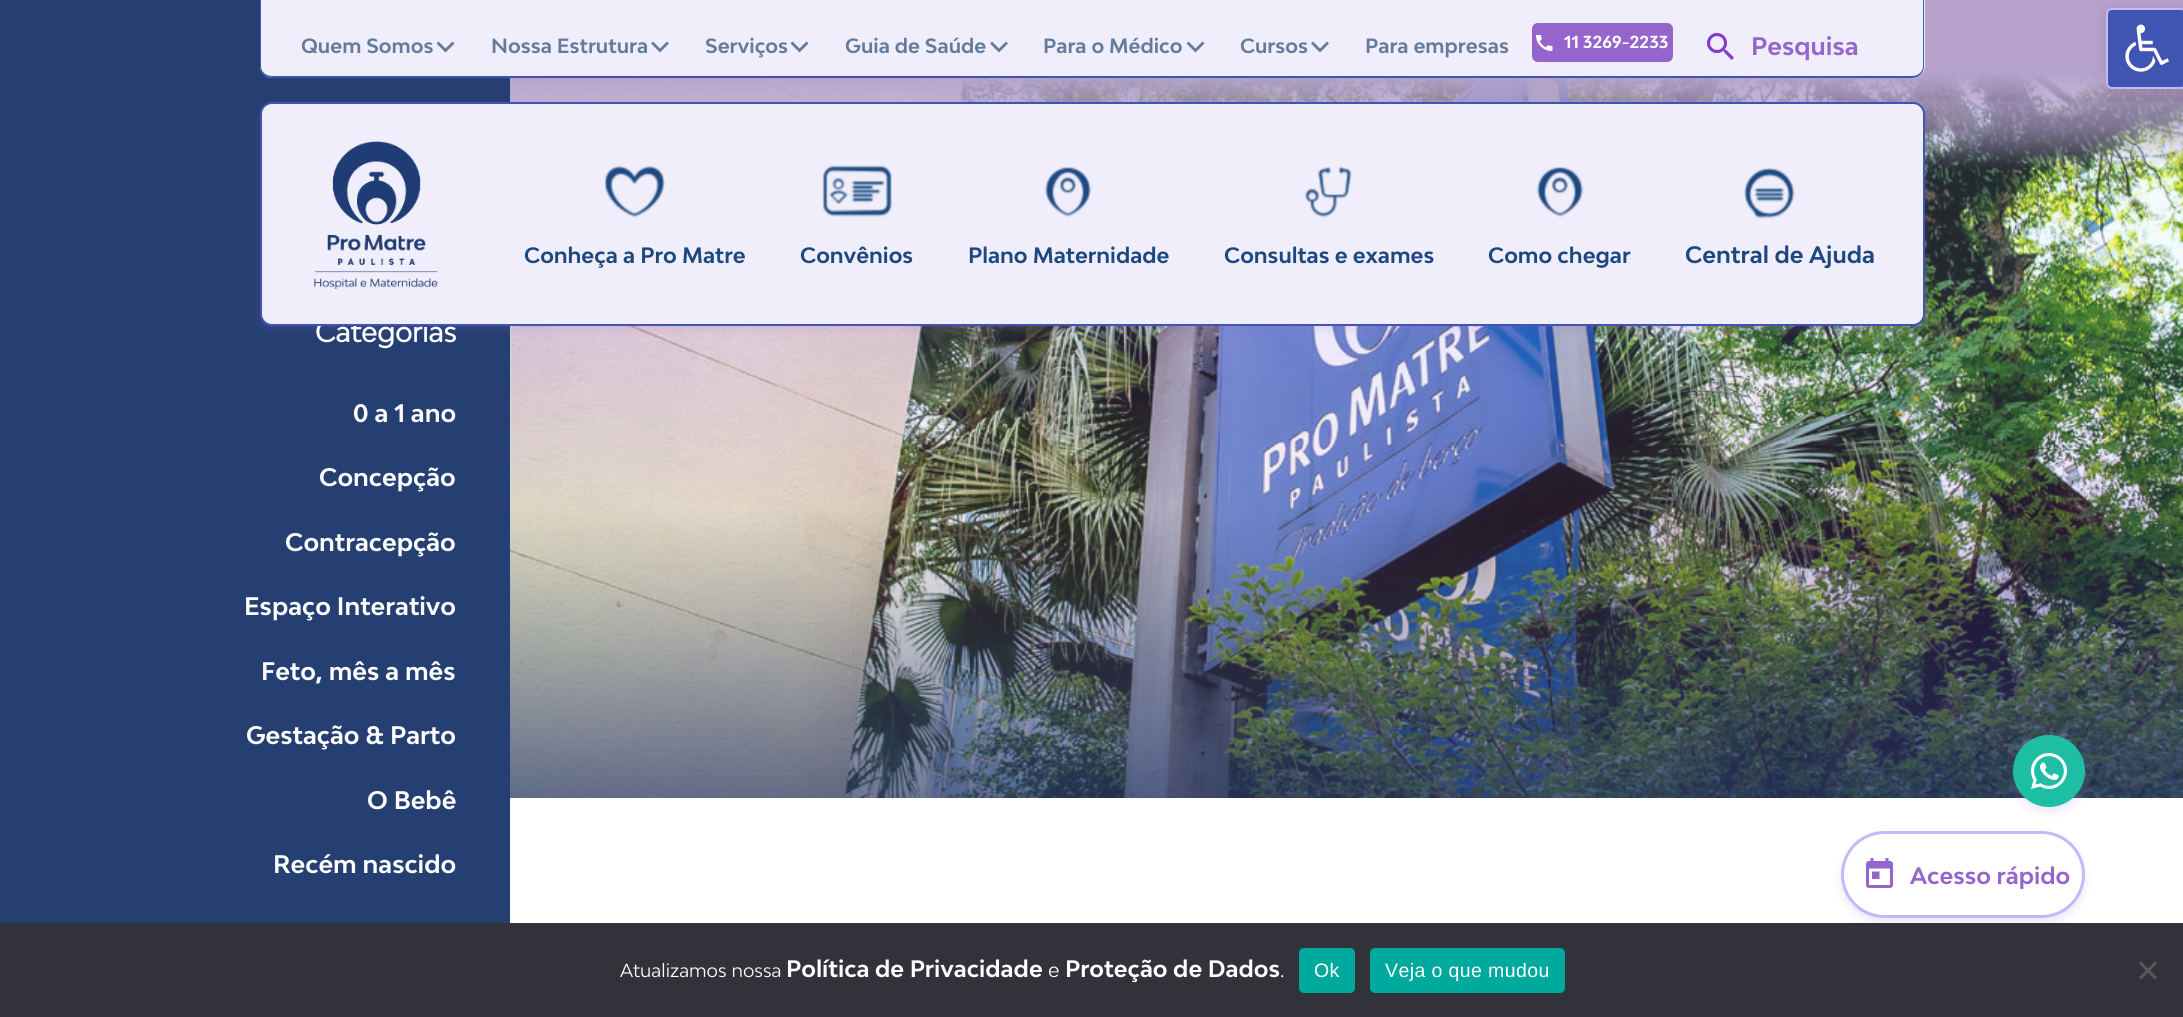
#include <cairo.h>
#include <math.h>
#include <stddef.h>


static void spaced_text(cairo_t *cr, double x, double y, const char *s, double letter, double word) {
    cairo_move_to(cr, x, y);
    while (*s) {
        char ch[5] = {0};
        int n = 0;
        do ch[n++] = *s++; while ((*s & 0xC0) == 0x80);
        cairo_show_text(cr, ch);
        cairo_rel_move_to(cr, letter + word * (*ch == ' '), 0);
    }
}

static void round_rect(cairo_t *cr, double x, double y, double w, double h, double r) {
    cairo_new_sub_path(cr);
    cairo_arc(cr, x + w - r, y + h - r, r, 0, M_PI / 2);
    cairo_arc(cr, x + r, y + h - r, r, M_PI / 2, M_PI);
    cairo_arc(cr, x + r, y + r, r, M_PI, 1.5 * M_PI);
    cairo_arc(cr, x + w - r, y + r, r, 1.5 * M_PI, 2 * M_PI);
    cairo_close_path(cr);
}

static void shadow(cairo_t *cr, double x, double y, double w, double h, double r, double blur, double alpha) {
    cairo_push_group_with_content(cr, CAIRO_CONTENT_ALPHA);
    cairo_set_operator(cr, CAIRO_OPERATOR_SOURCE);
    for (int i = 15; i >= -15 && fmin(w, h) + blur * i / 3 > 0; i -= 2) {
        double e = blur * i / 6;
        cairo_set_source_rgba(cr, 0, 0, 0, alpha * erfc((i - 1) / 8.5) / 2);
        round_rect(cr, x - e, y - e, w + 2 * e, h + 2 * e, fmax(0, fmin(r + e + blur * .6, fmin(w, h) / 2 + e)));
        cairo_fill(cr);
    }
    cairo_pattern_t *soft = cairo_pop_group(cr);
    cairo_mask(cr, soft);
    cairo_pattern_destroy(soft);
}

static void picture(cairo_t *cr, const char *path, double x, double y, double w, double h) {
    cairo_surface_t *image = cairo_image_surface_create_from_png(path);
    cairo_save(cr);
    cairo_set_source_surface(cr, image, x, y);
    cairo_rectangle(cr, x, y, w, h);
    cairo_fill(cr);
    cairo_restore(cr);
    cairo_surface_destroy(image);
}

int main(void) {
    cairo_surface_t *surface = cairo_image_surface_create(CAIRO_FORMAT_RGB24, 2183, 1017);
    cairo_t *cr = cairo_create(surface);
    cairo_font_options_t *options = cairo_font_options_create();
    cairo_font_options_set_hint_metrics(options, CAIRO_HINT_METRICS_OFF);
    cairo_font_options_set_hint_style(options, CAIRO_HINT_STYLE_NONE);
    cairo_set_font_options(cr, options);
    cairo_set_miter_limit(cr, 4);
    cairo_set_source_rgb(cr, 1, 1, 1);
    cairo_paint(cr);
    cairo_set_source_rgb(cr, 0.149, 0.247, 0.451);
    cairo_rectangle(cr, 0, 0, 510, 923);
    cairo_fill(cr);
    picture(cr, "img10.png", 510, 72, 1673, 726);
    picture(cr, "img11.png", 510, 0, 1673, 798);
    cairo_set_source_rgb(cr, 0.937, 0.933, 0.98);
    cairo_new_path(cr);
    cairo_move_to(cr, 260, 0);
    cairo_line_to(cr, 1925, 0);
    cairo_line_to(cr, 1925, 66);
    cairo_curve_to(cr, 1925, 72.5, 1919.5, 78, 1913, 78);
    cairo_line_to(cr, 272, 78);
    cairo_curve_to(cr, 265.5, 78, 260, 72.5, 260, 66);
    cairo_close_path(cr);
    cairo_fill(cr);
    cairo_set_source_rgb(cr, 0.251, 0.329, 0.698);
    cairo_set_fill_rule(cr, CAIRO_FILL_RULE_EVEN_ODD);
    cairo_new_path(cr);
    cairo_move_to(cr, 260, 0);
    cairo_line_to(cr, 1924, 0);
    cairo_line_to(cr, 1924, 66);
    cairo_curve_to(cr, 1924, 73, 1919, 78, 1912, 78);
    cairo_line_to(cr, 272, 78);
    cairo_curve_to(cr, 265, 78, 260, 73, 260, 66);
    cairo_close_path(cr);
    cairo_move_to(cr, 261, 0);
    cairo_line_to(cr, 1923, 0);
    cairo_line_to(cr, 1923, 66);
    cairo_curve_to(cr, 1923, 72, 1918, 76, 1912, 76);
    cairo_line_to(cr, 272, 76);
    cairo_curve_to(cr, 266, 76, 261, 72, 261, 66);
    cairo_close_path(cr);
    cairo_fill(cr);
    cairo_select_font_face(cr, "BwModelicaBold", CAIRO_FONT_SLANT_NORMAL, CAIRO_FONT_WEIGHT_BOLD);
    cairo_set_font_size(cr, 19.5);
    cairo_set_source_rgb(cr, 0.388, 0.482, 0.612);
    cairo_move_to(cr, 301, 53);
    cairo_show_text(cr, "Quem Somos");
    cairo_new_path(cr);
    cairo_move_to(cr, 438.5, 41.5);
    cairo_line_to(cr, 445.5, 48.5);
    cairo_line_to(cr, 452.5, 41.5);
    cairo_line_to(cr, 454.5, 43.5);
    cairo_line_to(cr, 445.5, 52.5);
    cairo_line_to(cr, 436.5, 43.5);
    cairo_close_path(cr);
    cairo_fill(cr);
    cairo_move_to(cr, 491, 53);
    cairo_show_text(cr, "Nossa Estrutura");
    cairo_new_path(cr);
    cairo_move_to(cr, 653, 41.5);
    cairo_line_to(cr, 660, 48.5);
    cairo_line_to(cr, 667, 41.5);
    cairo_line_to(cr, 669, 43.5);
    cairo_line_to(cr, 660, 52.5);
    cairo_line_to(cr, 651, 43.5);
    cairo_close_path(cr);
    cairo_fill(cr);
    cairo_move_to(cr, 705, 53);
    cairo_show_text(cr, "Serviços");
    cairo_new_path(cr);
    cairo_move_to(cr, 792.5, 41.5);
    cairo_line_to(cr, 799.5, 48.5);
    cairo_line_to(cr, 806.5, 41.5);
    cairo_line_to(cr, 808.5, 43.5);
    cairo_line_to(cr, 799.5, 52.5);
    cairo_line_to(cr, 790.5, 43.5);
    cairo_close_path(cr);
    cairo_fill(cr);
    cairo_move_to(cr, 845, 53);
    cairo_show_text(cr, "Guia de Saúde");
    cairo_new_path(cr);
    cairo_move_to(cr, 992, 41.5);
    cairo_line_to(cr, 999, 48.5);
    cairo_line_to(cr, 1006, 41.5);
    cairo_line_to(cr, 1008, 43.5);
    cairo_line_to(cr, 999, 52.5);
    cairo_line_to(cr, 990, 43.5);
    cairo_close_path(cr);
    cairo_fill(cr);
    cairo_move_to(cr, 1043, 53);
    cairo_show_text(cr, "Para o Médico");
    cairo_new_path(cr);
    cairo_move_to(cr, 1188.5, 41.5);
    cairo_line_to(cr, 1195.5, 48.5);
    cairo_line_to(cr, 1202.5, 41.5);
    cairo_line_to(cr, 1204.5, 43.5);
    cairo_line_to(cr, 1195.5, 52.5);
    cairo_line_to(cr, 1186.5, 43.5);
    cairo_close_path(cr);
    cairo_fill(cr);
    cairo_move_to(cr, 1240, 53);
    cairo_show_text(cr, "Cursos");
    cairo_new_path(cr);
    cairo_move_to(cr, 1313, 41.5);
    cairo_line_to(cr, 1320, 48.5);
    cairo_line_to(cr, 1327, 41.5);
    cairo_line_to(cr, 1329, 43.5);
    cairo_line_to(cr, 1320, 52.5);
    cairo_line_to(cr, 1311, 43.5);
    cairo_close_path(cr);
    cairo_fill(cr);
    cairo_move_to(cr, 1365, 53);
    cairo_show_text(cr, "Para empresas");
    cairo_set_source_rgb(cr, 0.588, 0.392, 0.804);
    round_rect(cr, 1532, 23, 141, 39, 6);
    cairo_fill(cr);
    picture(cr, "img1.png", 1536, 35, 17, 16);
    cairo_set_font_size(cr, 16.5);
    cairo_set_source_rgb(cr, 1, 1, 1);
    cairo_move_to(cr, 1564, 48);
    cairo_show_text(cr, "11 3269-2233");
    picture(cr, "img2.png", 1707, 33, 27, 27);
    cairo_set_font_size(cr, 24);
    cairo_set_source_rgb(cr, 0.588, 0.392, 0.804);
    cairo_move_to(cr, 1751, 55);
    cairo_show_text(cr, "Pesquisa");
    cairo_set_source_rgb(cr, 0.588, 0.392, 0.804);
    shadow(cr, 260, 107, 1665, 223, 12, 4.5, 0.16);
    cairo_select_font_face(cr, "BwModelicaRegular", CAIRO_FONT_SLANT_NORMAL, CAIRO_FONT_WEIGHT_BOLD);
    cairo_set_font_size(cr, 27);
    cairo_set_source_rgb(cr, 1, 1, 1);
    cairo_move_to(cr, 315, 342);
    cairo_show_text(cr, "Categorias");
    cairo_set_source_rgb(cr, 0.937, 0.933, 0.98);
    round_rect(cr, 261, 103, 1663, 222, 11);
    cairo_fill_preserve(cr);
    cairo_set_source_rgb(cr, 0.251, 0.329, 0.698);
    cairo_stroke(cr);
    picture(cr, "img3.png", 314, 141, 124, 148);
    picture(cr, "img4.png", 605, 166, 60, 52);
    cairo_select_font_face(cr, "BwModelicaBold", CAIRO_FONT_SLANT_NORMAL, CAIRO_FONT_WEIGHT_BOLD);
    cairo_set_font_size(cr, 21);
    cairo_set_source_rgb(cr, 0.11, 0.278, 0.498);
    cairo_move_to(cr, 524, 263);
    cairo_show_text(cr, "Conheça a Pro Matre");
    picture(cr, "img5.png", 822, 165, 70, 52);
    cairo_move_to(cr, 800, 263);
    cairo_show_text(cr, "Convênios");
    picture(cr, "img6.png", 1044, 167, 48, 50);
    cairo_move_to(cr, 968, 263);
    cairo_show_text(cr, "Plano Maternidade");
    picture(cr, "img7.png", 1304, 166, 48, 52);
    cairo_move_to(cr, 1224, 263);
    cairo_show_text(cr, "Consultas e exames");
    picture(cr, "img6.png", 1536, 167, 48, 50);
    cairo_move_to(cr, 1488, 263);
    cairo_show_text(cr, "Como chegar");
    picture(cr, "img8.png", 1744, 167, 51, 52);
    cairo_set_font_size(cr, 22.5);
    cairo_move_to(cr, 1685, 263);
    cairo_show_text(cr, "Central de Ajuda");
    cairo_set_source_rgb(cr, 0, 0, 0);
    shadow(cr, 2106, 8, 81, 81, 6, 7.5, 0.1);
    cairo_set_source_rgb(cr, 0.251, 0.329, 0.698);
    round_rect(cr, 2107, 9, 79, 79, 5);
    cairo_fill_preserve(cr);
    cairo_set_source_rgb(cr, 0.757, 0.725, 0.98);
    cairo_stroke(cr);
    picture(cr, "img9.png", 2125, 24, 44, 48);
    cairo_set_font_size(cr, 24);
    cairo_set_source_rgb(cr, 1, 1, 1);
    cairo_move_to(cr, 353, 422);
    cairo_show_text(cr, "0 a 1 ano");
    cairo_move_to(cr, 319, 486);
    cairo_show_text(cr, "Concepção");
    cairo_move_to(cr, 285, 551);
    cairo_show_text(cr, "Contracepção");
    cairo_move_to(cr, 244, 615);
    cairo_show_text(cr, "Espaço Interativo");
    cairo_move_to(cr, 261, 680);
    cairo_show_text(cr, "Feto, mês a mês");
    cairo_move_to(cr, 246, 744);
    cairo_show_text(cr, "Gestação & Parto");
    cairo_move_to(cr, 367, 809);
    cairo_show_text(cr, "O Bebê");
    cairo_move_to(cr, 273, 873);
    cairo_show_text(cr, "Recém nascido");
    cairo_set_source_rgb(cr, 0.588, 0.392, 0.804);
    shadow(cr, 2013, 740, 72, 72, 36, 4.5, 0.16);
    cairo_set_source_rgb(cr, 0.118, 0.745, 0.647);
    cairo_arc(cr, 2049, 771, 36, 0, 2 * M_PI);
    cairo_fill(cr);
    picture(cr, "img12.png", 2031, 753, 36, 36);
    cairo_set_source_rgb(cr, 0.588, 0.392, 0.804);
    shadow(cr, 1841, 836, 244, 87, 43.5, 4.5, 0.16);
    cairo_set_source_rgb(cr, 1, 1, 1);
    round_rect(cr, 1842.5, 832.5, 241, 84, 42);
    cairo_fill_preserve(cr);
    cairo_set_source_rgb(cr, 0.757, 0.725, 0.98);
    cairo_set_line_width(cr, 3);
    cairo_stroke(cr);
    picture(cr, "img13.png", 1866, 858, 27, 30);
    cairo_set_font_size(cr, 22.5);
    cairo_set_source_rgb(cr, 0.588, 0.392, 0.804);
    cairo_move_to(cr, 1910, 884);
    cairo_show_text(cr, "Acesso rápido");
    cairo_set_source_rgb(cr, 0.196, 0.196, 0.227);
    cairo_rectangle(cr, 0, 923, 2183, 94);
    cairo_fill(cr);
    cairo_select_font_face(cr, "BwModelicaRegular", CAIRO_FONT_SLANT_NORMAL, CAIRO_FONT_WEIGHT_NORMAL);
    cairo_set_font_size(cr, 18);
    cairo_set_source_rgb(cr, 1, 1, 1);
    cairo_move_to(cr, 620, 977);
    cairo_show_text(cr, "Atualizamos nossa");
    cairo_select_font_face(cr, "BwModelicaBold", CAIRO_FONT_SLANT_NORMAL, CAIRO_FONT_WEIGHT_BOLD);
    cairo_set_font_size(cr, 22.5);
    cairo_move_to(cr, 786, 977);
    cairo_show_text(cr, "Política de Privacidade");
    cairo_select_font_face(cr, "BwModelicaRegular", CAIRO_FONT_SLANT_NORMAL, CAIRO_FONT_WEIGHT_NORMAL);
    cairo_set_font_size(cr, 19.5);
    cairo_move_to(cr, 1048, 977);
    cairo_show_text(cr, "e");
    cairo_select_font_face(cr, "BwModelicaBold", CAIRO_FONT_SLANT_NORMAL, CAIRO_FONT_WEIGHT_BOLD);
    cairo_set_font_size(cr, 22.5);
    cairo_move_to(cr, 1065, 977);
    cairo_show_text(cr, "Proteção de Dados");
    cairo_select_font_face(cr, "BwModelicaRegular", CAIRO_FONT_SLANT_NORMAL, CAIRO_FONT_WEIGHT_NORMAL);
    cairo_set_font_size(cr, 19.5);
    cairo_move_to(cr, 1280, 977);
    cairo_show_text(cr, ".");
    cairo_set_source_rgb(cr, 0, 0.663, 0.616);
    round_rect(cr, 1299, 948, 56, 45, 5);
    cairo_fill(cr);
    cairo_select_font_face(cr, "Liberation Sans", CAIRO_FONT_SLANT_NORMAL, CAIRO_FONT_WEIGHT_NORMAL);
    cairo_set_source_rgb(cr, 1, 1, 1);
    spaced_text(cr, 1314, 977, "Ok", 0.4, 0);
    cairo_set_source_rgb(cr, 0, 0.663, 0.616);
    round_rect(cr, 1370, 948, 195, 45, 5);
    cairo_fill(cr);
    cairo_set_source_rgb(cr, 1, 1, 1);
    spaced_text(cr, 1385, 977, "Veja o que mudou", 0.4, 0);
    cairo_set_source_rgb(cr, 0.349, 0.349, 0.365);
    cairo_set_fill_rule(cr, CAIRO_FILL_RULE_WINDING);
    cairo_new_path(cr);
    cairo_move_to(cr, 2155, 961.5);
    cairo_line_to(cr, 2157, 963.5);
    cairo_line_to(cr, 2141, 979.5);
    cairo_line_to(cr, 2139, 977.5);
    cairo_close_path(cr);
    cairo_fill(cr);
    cairo_new_path(cr);
    cairo_move_to(cr, 2139, 963.5);
    cairo_line_to(cr, 2141, 961.5);
    cairo_line_to(cr, 2157, 977.5);
    cairo_line_to(cr, 2155, 979.5);
    cairo_close_path(cr);
    cairo_fill(cr);
    cairo_surface_write_to_png(surface, "page.png");
    cairo_font_options_destroy(options);
    cairo_destroy(cr);
    cairo_surface_destroy(surface);
    return 0;
}
